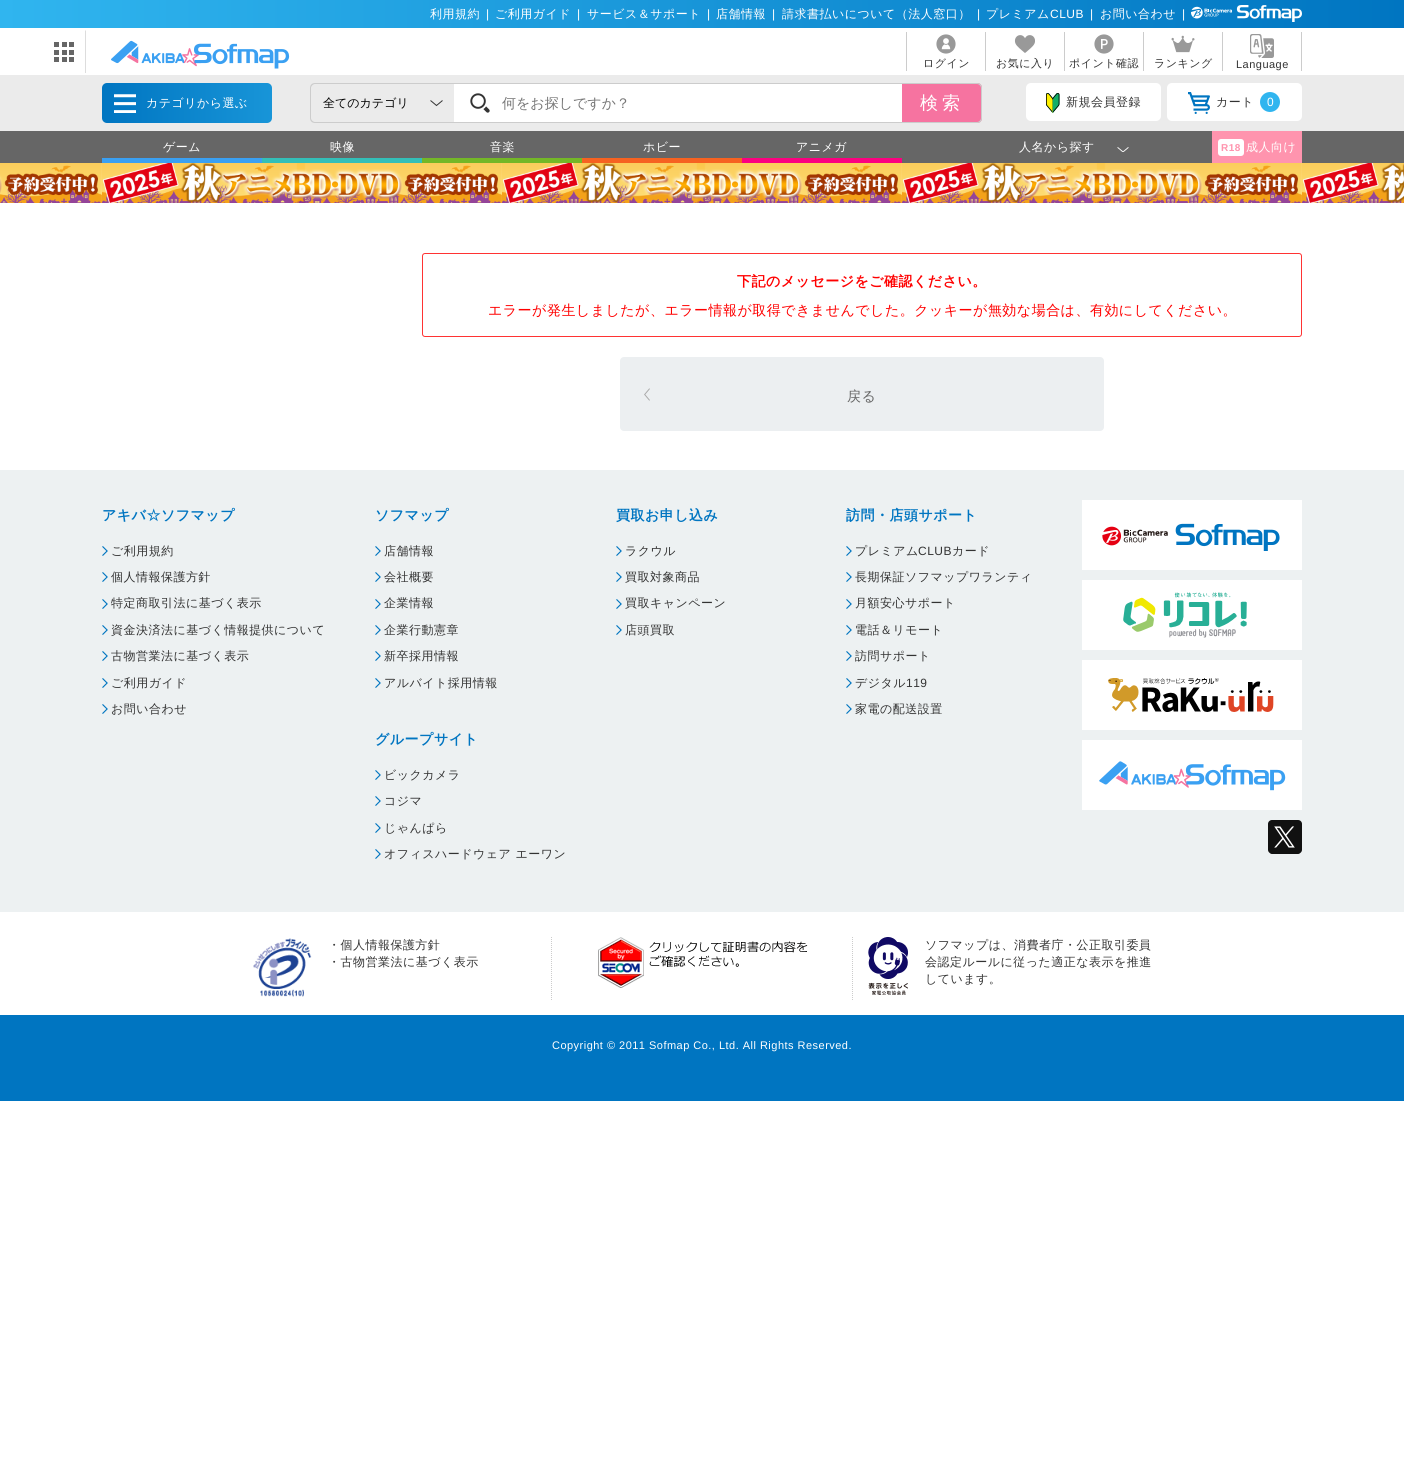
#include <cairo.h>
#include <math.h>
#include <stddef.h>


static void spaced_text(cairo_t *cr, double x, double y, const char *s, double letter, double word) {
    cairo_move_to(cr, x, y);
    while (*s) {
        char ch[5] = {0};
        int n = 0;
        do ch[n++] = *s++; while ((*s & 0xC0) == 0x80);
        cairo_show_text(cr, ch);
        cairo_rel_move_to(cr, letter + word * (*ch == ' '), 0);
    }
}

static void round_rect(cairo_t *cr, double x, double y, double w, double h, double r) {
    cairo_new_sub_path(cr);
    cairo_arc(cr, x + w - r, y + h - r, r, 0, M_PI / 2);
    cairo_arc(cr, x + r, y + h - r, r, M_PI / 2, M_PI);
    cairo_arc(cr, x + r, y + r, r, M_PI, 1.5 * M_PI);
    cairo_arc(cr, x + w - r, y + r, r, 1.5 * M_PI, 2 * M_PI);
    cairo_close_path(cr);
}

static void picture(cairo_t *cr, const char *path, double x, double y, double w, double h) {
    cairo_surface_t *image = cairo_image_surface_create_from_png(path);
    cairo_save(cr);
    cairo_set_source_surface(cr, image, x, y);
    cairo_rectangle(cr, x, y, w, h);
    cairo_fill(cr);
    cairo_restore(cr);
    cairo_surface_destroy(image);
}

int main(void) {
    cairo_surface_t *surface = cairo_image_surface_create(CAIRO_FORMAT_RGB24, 1404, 1469);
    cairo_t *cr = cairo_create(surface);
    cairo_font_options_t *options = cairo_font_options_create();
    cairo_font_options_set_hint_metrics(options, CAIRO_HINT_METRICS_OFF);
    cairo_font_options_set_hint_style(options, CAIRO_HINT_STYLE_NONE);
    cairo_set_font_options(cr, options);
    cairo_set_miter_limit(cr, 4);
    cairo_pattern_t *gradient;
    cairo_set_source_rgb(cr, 1, 1, 1);
    cairo_paint(cr);
    gradient = cairo_pattern_create_linear(0, 14, 1404, 14);
    cairo_pattern_add_color_stop_rgba(gradient, 0, 0.188, 0.71, 0.937, 1);
    cairo_pattern_add_color_stop_rgba(gradient, 1, 0, 0.459, 0.757, 1);
    cairo_set_source(cr, gradient);
    cairo_pattern_destroy(gradient);
    cairo_rectangle(cr, 0, 0, 1404, 28);
    cairo_fill(cr);
    cairo_select_font_face(cr, "WenQuanYi Zen Hei Medium", CAIRO_FONT_SLANT_NORMAL, CAIRO_FONT_WEIGHT_NORMAL);
    cairo_set_font_size(cr, 12);
    cairo_set_source_rgb(cr, 1, 1, 1);
    spaced_text(cr, 430, 18, "利用規約", 0.48, 0);
    cairo_select_font_face(cr, "Liberation Sans", CAIRO_FONT_SLANT_NORMAL, CAIRO_FONT_WEIGHT_NORMAL);
    spaced_text(cr, 486, 18, "|", 0.48, 0);
    cairo_select_font_face(cr, "WenQuanYi Zen Hei Medium", CAIRO_FONT_SLANT_NORMAL, CAIRO_FONT_WEIGHT_NORMAL);
    spaced_text(cr, 495, 18, "ご利用ガイド", 0.48, 0);
    cairo_select_font_face(cr, "Liberation Sans", CAIRO_FONT_SLANT_NORMAL, CAIRO_FONT_WEIGHT_NORMAL);
    spaced_text(cr, 577, 18, "|", 0.48, 0);
    cairo_select_font_face(cr, "WenQuanYi Zen Hei Medium", CAIRO_FONT_SLANT_NORMAL, CAIRO_FONT_WEIGHT_NORMAL);
    spaced_text(cr, 587, 18, "サービス＆サポート", 0.48, 0);
    cairo_select_font_face(cr, "Liberation Sans", CAIRO_FONT_SLANT_NORMAL, CAIRO_FONT_WEIGHT_NORMAL);
    spaced_text(cr, 707, 18, "|", 0.48, 0);
    cairo_select_font_face(cr, "WenQuanYi Zen Hei Medium", CAIRO_FONT_SLANT_NORMAL, CAIRO_FONT_WEIGHT_NORMAL);
    spaced_text(cr, 716, 18, "店舗情報", 0.48, 0);
    cairo_select_font_face(cr, "Liberation Sans", CAIRO_FONT_SLANT_NORMAL, CAIRO_FONT_WEIGHT_NORMAL);
    spaced_text(cr, 772, 18, "|", 0.48, 0);
    cairo_select_font_face(cr, "WenQuanYi Zen Hei Medium", CAIRO_FONT_SLANT_NORMAL, CAIRO_FONT_WEIGHT_NORMAL);
    spaced_text(cr, 782, 18, "請求書払いについて（法人窓口）", 0.48, 0);
    cairo_select_font_face(cr, "Liberation Sans", CAIRO_FONT_SLANT_NORMAL, CAIRO_FONT_WEIGHT_NORMAL);
    spaced_text(cr, 977, 18, "|", 0.48, 0);
    cairo_select_font_face(cr, "WenQuanYi Zen Hei Medium", CAIRO_FONT_SLANT_NORMAL, CAIRO_FONT_WEIGHT_NORMAL);
    spaced_text(cr, 986, 18, "プレミアム", 0.48, 0);
    cairo_select_font_face(cr, "Liberation Sans", CAIRO_FONT_SLANT_NORMAL, CAIRO_FONT_WEIGHT_NORMAL);
    spaced_text(cr, 1050, 18, "CLUB", 0.48, 0);
    spaced_text(cr, 1090, 18, "|", 0.48, 0);
    cairo_select_font_face(cr, "WenQuanYi Zen Hei Medium", CAIRO_FONT_SLANT_NORMAL, CAIRO_FONT_WEIGHT_NORMAL);
    spaced_text(cr, 1100, 18, "お問い合わせ", 0.48, 0);
    cairo_select_font_face(cr, "Liberation Sans", CAIRO_FONT_SLANT_NORMAL, CAIRO_FONT_WEIGHT_NORMAL);
    spaced_text(cr, 1182, 18, "|", 0.48, 0);
    picture(cr, "img1.png", 1191, 5, 111, 17);
    cairo_set_source_rgb(cr, 0.867, 0.867, 0.867);
    cairo_new_path(cr);
    cairo_move_to(cr, 86, 30);
    cairo_line_to(cr, 86, 73);
    cairo_line_to(cr, 85, 73);
    cairo_line_to(cr, 85, 31);
    cairo_close_path(cr);
    cairo_fill(cr);
    picture(cr, "img2.png", 54, 42, 20, 20);
    picture(cr, "img3.png", 111, 40, 179, 29);
    cairo_set_source_rgb(cr, 0.8, 0.8, 0.8);
    cairo_rectangle(cr, 1301, 32, 1, 39);
    cairo_fill(cr);
    cairo_rectangle(cr, 906, 32, 1, 39);
    cairo_fill(cr);
    picture(cr, "img4.png", 936, 34, 20, 20);
    cairo_select_font_face(cr, "WenQuanYi Zen Hei Medium", CAIRO_FONT_SLANT_NORMAL, CAIRO_FONT_WEIGHT_NORMAL);
    cairo_set_font_size(cr, 11);
    cairo_set_source_rgb(cr, 0.2, 0.2, 0.2);
    spaced_text(cr, 923, 67, "ログイン", 0.48, 0);
    cairo_set_source_rgb(cr, 0.8, 0.8, 0.8);
    cairo_rectangle(cr, 985, 32, 1, 39);
    cairo_fill(cr);
    picture(cr, "img5.png", 1014, 35, 21, 18);
    cairo_set_source_rgb(cr, 0.2, 0.2, 0.2);
    spaced_text(cr, 996, 67, "お気に入り", 0.48, 0);
    cairo_set_source_rgb(cr, 0.8, 0.8, 0.8);
    cairo_rectangle(cr, 1064, 32, 1, 39);
    cairo_fill(cr);
    picture(cr, "img6.png", 1094, 34, 20, 20);
    cairo_set_source_rgb(cr, 0.2, 0.2, 0.2);
    spaced_text(cr, 1069, 67, "ポイント確認", 0.48, 0);
    cairo_set_source_rgb(cr, 0.8, 0.8, 0.8);
    cairo_rectangle(cr, 1143, 32, 1, 39);
    cairo_fill(cr);
    picture(cr, "img7.png", 1171, 35, 24, 18);
    cairo_set_source_rgb(cr, 0.2, 0.2, 0.2);
    spaced_text(cr, 1154, 67, "ランキング", 0.48, 0);
    cairo_set_source_rgb(cr, 0.8, 0.8, 0.8);
    cairo_rectangle(cr, 1222, 32, 1, 39);
    cairo_fill(cr);
    picture(cr, "img8.png", 1250, 34, 24, 24);
    cairo_select_font_face(cr, "Liberation Sans", CAIRO_FONT_SLANT_NORMAL, CAIRO_FONT_WEIGHT_NORMAL);
    cairo_set_source_rgb(cr, 0.2, 0.2, 0.2);
    spaced_text(cr, 1236, 68, "Language", 0.48, 0);
    cairo_set_source_rgb(cr, 0.918, 0.918, 0.918);
    cairo_rectangle(cr, 0, 75, 1404, 56);
    cairo_fill(cr);
    gradient = cairo_pattern_create_linear(272, 103, 102, 103);
    cairo_pattern_add_color_stop_rgba(gradient, 0, 0.094, 0.584, 0.847, 1);
    cairo_pattern_add_color_stop_rgba(gradient, 1, 0, 0.459, 0.757, 1);
    cairo_set_source(cr, gradient);
    cairo_pattern_destroy(gradient);
    round_rect(cr, 102, 83, 170, 40, 5);
    cairo_fill(cr);
    picture(cr, "img9.png", 114, 94, 22, 19);
    cairo_select_font_face(cr, "WenQuanYi Zen Hei Medium", CAIRO_FONT_SLANT_NORMAL, CAIRO_FONT_WEIGHT_NORMAL);
    cairo_set_font_size(cr, 12);
    cairo_set_source_rgb(cr, 1, 1, 1);
    spaced_text(cr, 146, 107, "カテゴリから選ぶ", 0.48, 0);
    cairo_new_path(cr);
    cairo_move_to(cr, 442.5, 100.5);
    cairo_line_to(cr, 436.5, 105.5);
    cairo_line_to(cr, 430.5, 100.5);
    cairo_set_source_rgb(cr, 0.2, 0.2, 0.2);
    cairo_set_line_width(cr, 1);
    cairo_stroke(cr);
    cairo_set_source_rgb(cr, 0.8, 0.8, 0.8);
    cairo_set_fill_rule(cr, CAIRO_FILL_RULE_EVEN_ODD);
    cairo_new_path(cr);
    cairo_move_to(cr, 315, 83);
    cairo_line_to(cr, 454, 83);
    cairo_line_to(cr, 454, 123);
    cairo_line_to(cr, 315, 123);
    cairo_curve_to(cr, 312, 123, 310, 121, 310, 118);
    cairo_line_to(cr, 310, 88);
    cairo_curve_to(cr, 310, 85, 312, 83, 315, 83);
    cairo_close_path(cr);
    cairo_move_to(cr, 315, 84);
    cairo_line_to(cr, 454, 84);
    cairo_line_to(cr, 454, 122);
    cairo_line_to(cr, 315, 122);
    cairo_curve_to(cr, 313, 122, 311, 120, 311, 118);
    cairo_line_to(cr, 311, 88);
    cairo_curve_to(cr, 311, 86, 313, 84, 315, 84);
    cairo_close_path(cr);
    cairo_fill(cr);
    cairo_set_source_rgb(cr, 0, 0, 0);
    cairo_move_to(cr, 323, 107);
    cairo_show_text(cr, "全てのカテゴリ");
    cairo_set_source_rgb(cr, 1, 1, 1);
    cairo_rectangle(cr, 454, 84, 448, 38);
    cairo_fill(cr);
    picture(cr, "img10.png", 470, 93, 20, 20);
    cairo_set_source_rgb(cr, 0.8, 0.8, 0.8);
    cairo_rectangle(cr, 454, 83, 448, 1);
    cairo_fill(cr);
    cairo_rectangle(cr, 454, 122, 448, 1);
    cairo_fill(cr);
    cairo_set_font_size(cr, 14);
    cairo_set_source_rgb(cr, 0.459, 0.459, 0.459);
    cairo_move_to(cr, 502, 108);
    cairo_show_text(cr, "何をお探しですか？");
    cairo_set_source_rgb(cr, 0.961, 0.451, 0.627);
    cairo_new_path(cr);
    cairo_move_to(cr, 902, 83);
    cairo_line_to(cr, 977, 83);
    cairo_curve_to(cr, 980, 83, 982, 85, 982, 88);
    cairo_line_to(cr, 982, 118);
    cairo_curve_to(cr, 982, 121, 980, 123, 977, 123);
    cairo_line_to(cr, 902, 123);
    cairo_close_path(cr);
    cairo_fill(cr);
    cairo_set_source_rgb(cr, 0.8, 0.8, 0.8);
    cairo_new_path(cr);
    cairo_move_to(cr, 902, 83);
    cairo_line_to(cr, 977, 83);
    cairo_curve_to(cr, 980, 83, 982, 85, 982, 88);
    cairo_line_to(cr, 982, 118);
    cairo_curve_to(cr, 982, 121, 980, 123, 977, 123);
    cairo_line_to(cr, 902, 123);
    cairo_close_path(cr);
    cairo_move_to(cr, 902, 84);
    cairo_line_to(cr, 977, 84);
    cairo_curve_to(cr, 979, 84, 981, 86, 981, 88);
    cairo_line_to(cr, 981, 118);
    cairo_curve_to(cr, 981, 120, 979, 122, 977, 122);
    cairo_line_to(cr, 902, 122);
    cairo_close_path(cr);
    cairo_fill(cr);
    cairo_set_font_size(cr, 18);
    cairo_set_source_rgb(cr, 1, 1, 1);
    spaced_text(cr, 920, 109, "検索", 4, 0);
    round_rect(cr, 1026, 83, 135, 38, 5);
    cairo_fill(cr);
    picture(cr, "img11.png", 1046, 93, 14, 20);
    cairo_set_font_size(cr, 12);
    cairo_set_source_rgb(cr, 0.2, 0.2, 0.2);
    spaced_text(cr, 1066, 106, "新規会員登録", 0.48, 0);
    cairo_set_source_rgb(cr, 1, 1, 1);
    round_rect(cr, 1167, 83, 135, 38, 5);
    cairo_fill(cr);
    picture(cr, "img12.png", 1188, 92, 22, 22);
    cairo_set_source_rgb(cr, 0.2, 0.2, 0.2);
    spaced_text(cr, 1216, 106, "カート", 0.48, 0);
    cairo_set_source_rgb(cr, 0.188, 0.71, 0.937);
    cairo_new_path(cr);
    cairo_arc(cr, 1270, 102, 10, 0, 2 * M_PI);
    cairo_fill(cr);
    cairo_select_font_face(cr, "Liberation Sans", CAIRO_FONT_SLANT_NORMAL, CAIRO_FONT_WEIGHT_NORMAL);
    cairo_set_source_rgb(cr, 1, 1, 1);
    spaced_text(cr, 1267, 106, "0", 0.48, 0);
    cairo_set_source_rgb(cr, 0.4, 0.4, 0.4);
    cairo_rectangle(cr, 0, 131, 1404, 32);
    cairo_fill(cr);
    cairo_set_source_rgb(cr, 0.227, 0.627, 0.949);
    cairo_rectangle(cr, 102, 158, 160, 5);
    cairo_fill(cr);
    cairo_select_font_face(cr, "WenQuanYi Zen Hei Medium", CAIRO_FONT_SLANT_NORMAL, CAIRO_FONT_WEIGHT_NORMAL);
    cairo_set_source_rgb(cr, 1, 1, 1);
    spaced_text(cr, 163, 151, "ゲーム", 0.48, 0);
    cairo_set_source_rgb(cr, 0.2, 0.749, 0.722);
    cairo_rectangle(cr, 262, 158, 160, 5);
    cairo_fill(cr);
    cairo_set_source_rgb(cr, 1, 1, 1);
    spaced_text(cr, 330, 151, "映像", 0.48, 0);
    cairo_set_source_rgb(cr, 0.455, 0.718, 0.153);
    cairo_rectangle(cr, 422, 158, 160, 5);
    cairo_fill(cr);
    cairo_set_source_rgb(cr, 1, 1, 1);
    spaced_text(cr, 490, 151, "音楽", 0.48, 0);
    cairo_set_source_rgb(cr, 0.961, 0.384, 0.129);
    cairo_rectangle(cr, 582, 158, 160, 5);
    cairo_fill(cr);
    cairo_set_source_rgb(cr, 1, 1, 1);
    spaced_text(cr, 643, 151, "ホビー", 0.48, 0);
    cairo_set_source_rgb(cr, 0.988, 0, 0.502);
    cairo_rectangle(cr, 742, 158, 160, 5);
    cairo_fill(cr);
    cairo_set_source_rgb(cr, 1, 1, 1);
    spaced_text(cr, 796, 151, "アニメガ", 0.48, 0);
    picture(cr, "img13.png", 1117, 147, 12, 5);
    spaced_text(cr, 1019, 151, "人名から探す", 0.48, 0);
    cairo_set_source_rgb(cr, 1, 0.58, 0.682);
    cairo_rectangle(cr, 1212, 131, 90, 32);
    cairo_fill(cr);
    cairo_set_source_rgb(cr, 1, 1, 1);
    round_rect(cr, 1218, 139, 26, 17, 3);
    cairo_fill(cr);
    cairo_select_font_face(cr, "Liberation Sans", CAIRO_FONT_SLANT_NORMAL, CAIRO_FONT_WEIGHT_BOLD);
    cairo_set_font_size(cr, 10);
    cairo_set_source_rgb(cr, 1, 0.58, 0.682);
    spaced_text(cr, 1221, 151, "R18", 0.48, 0);
    cairo_select_font_face(cr, "WenQuanYi Zen Hei Medium", CAIRO_FONT_SLANT_NORMAL, CAIRO_FONT_WEIGHT_NORMAL);
    cairo_set_font_size(cr, 12);
    cairo_set_source_rgb(cr, 1, 1, 1);
    spaced_text(cr, 1246, 151, "成人向け", 0.48, 0);
    picture(cr, "img14.png", 0, 163, 1404, 40);
    round_rect(cr, 422.5, 253.5, 879, 83, 2.5);
    cairo_set_source_rgb(cr, 1, 0.2, 0.2);
    cairo_stroke(cr);
    cairo_select_font_face(cr, "WenQuanYi Zen Hei", CAIRO_FONT_SLANT_NORMAL, CAIRO_FONT_WEIGHT_BOLD);
    cairo_set_font_size(cr, 14);
    cairo_set_source_rgb(cr, 1, 0, 0);
    spaced_text(cr, 737, 286, "下記のメッセージをご確認ください。", 0.48, 0);
    cairo_select_font_face(cr, "WenQuanYi Zen Hei Medium", CAIRO_FONT_SLANT_NORMAL, CAIRO_FONT_WEIGHT_NORMAL);
    spaced_text(cr, 488, 315, "エラーが発生しましたが、エラー情報が取得できませんでした。クッキーが無効な場合は、有効にしてください。", 0.48, 0);
    cairo_set_source_rgb(cr, 0.922, 0.937, 0.945);
    round_rect(cr, 620, 357, 484, 74, 4);
    cairo_fill(cr);
    picture(cr, "img15.png", 644, 388, 6, 13);
    cairo_set_source_rgb(cr, 0.4, 0.4, 0.4);
    spaced_text(cr, 847, 401, "戻る", 0.48, 0);
    cairo_set_source_rgb(cr, 0.929, 0.945, 0.949);
    cairo_rectangle(cr, 0, 470, 1404, 442);
    cairo_fill(cr);
    cairo_select_font_face(cr, "WenQuanYi Zen Hei", CAIRO_FONT_SLANT_NORMAL, CAIRO_FONT_WEIGHT_BOLD);
    cairo_set_source_rgb(cr, 0, 0.459, 0.757);
    spaced_text(cr, 102, 520, "アキバ☆ソフマップ", 0.48, 0);
    picture(cr, "img16.png", 102, 546, 6, 10);
    cairo_select_font_face(cr, "WenQuanYi Zen Hei Medium", CAIRO_FONT_SLANT_NORMAL, CAIRO_FONT_WEIGHT_NORMAL);
    cairo_set_font_size(cr, 12);
    cairo_set_source_rgb(cr, 0.2, 0.2, 0.2);
    spaced_text(cr, 111, 555, "ご利用規約", 0.48, 0);
    picture(cr, "img16.png", 102, 572, 6, 10);
    spaced_text(cr, 111, 581, "個人情報保護方針", 0.48, 0);
    picture(cr, "img16.png", 102, 599, 6, 10);
    spaced_text(cr, 111, 607, "特定商取引法に基づく表示", 0.48, 0);
    picture(cr, "img16.png", 102, 625, 6, 10);
    spaced_text(cr, 111, 634, "資金決済法に基づく情報提供について", 0.48, 0);
    picture(cr, "img16.png", 102, 651, 6, 10);
    spaced_text(cr, 111, 660, "古物営業法に基づく表示", 0.48, 0);
    picture(cr, "img16.png", 102, 678, 6, 10);
    spaced_text(cr, 111, 687, "ご利用ガイド", 0.48, 0);
    picture(cr, "img16.png", 102, 704, 6, 10);
    spaced_text(cr, 111, 713, "お問い合わせ", 0.48, 0);
    cairo_select_font_face(cr, "WenQuanYi Zen Hei", CAIRO_FONT_SLANT_NORMAL, CAIRO_FONT_WEIGHT_BOLD);
    cairo_set_font_size(cr, 14);
    cairo_set_source_rgb(cr, 0, 0.459, 0.757);
    spaced_text(cr, 375, 520, "ソフマップ", 0.48, 0);
    picture(cr, "img16.png", 375, 546, 6, 10);
    cairo_select_font_face(cr, "WenQuanYi Zen Hei Medium", CAIRO_FONT_SLANT_NORMAL, CAIRO_FONT_WEIGHT_NORMAL);
    cairo_set_font_size(cr, 12);
    cairo_set_source_rgb(cr, 0.2, 0.2, 0.2);
    spaced_text(cr, 384, 555, "店舗情報", 0.48, 0);
    picture(cr, "img16.png", 375, 572, 6, 10);
    spaced_text(cr, 384, 581, "会社概要", 0.48, 0);
    picture(cr, "img16.png", 375, 599, 6, 10);
    spaced_text(cr, 384, 607, "企業情報", 0.48, 0);
    picture(cr, "img16.png", 375, 625, 6, 10);
    spaced_text(cr, 384, 634, "企業行動憲章", 0.48, 0);
    picture(cr, "img16.png", 375, 651, 6, 10);
    spaced_text(cr, 384, 660, "新卒採用情報", 0.48, 0);
    picture(cr, "img16.png", 375, 678, 6, 10);
    spaced_text(cr, 384, 687, "アルバイト採用情報", 0.48, 0);
    cairo_select_font_face(cr, "WenQuanYi Zen Hei", CAIRO_FONT_SLANT_NORMAL, CAIRO_FONT_WEIGHT_BOLD);
    cairo_set_font_size(cr, 14);
    cairo_set_source_rgb(cr, 0, 0.459, 0.757);
    spaced_text(cr, 375, 744, "グループサイト", 0.48, 0);
    picture(cr, "img16.png", 375, 770, 6, 10);
    cairo_select_font_face(cr, "WenQuanYi Zen Hei Medium", CAIRO_FONT_SLANT_NORMAL, CAIRO_FONT_WEIGHT_NORMAL);
    cairo_set_font_size(cr, 12);
    cairo_set_source_rgb(cr, 0.2, 0.2, 0.2);
    spaced_text(cr, 384, 779, "ビックカメラ", 0.48, 0);
    picture(cr, "img16.png", 375, 796, 6, 10);
    spaced_text(cr, 384, 805, "コジマ", 0.48, 0);
    picture(cr, "img16.png", 375, 823, 6, 10);
    spaced_text(cr, 384, 832, "じゃんぱら", 0.48, 0);
    picture(cr, "img16.png", 375, 849, 6, 10);
    spaced_text(cr, 384, 858, "オフィスハードウェア エーワン", 0.48, 0);
    cairo_select_font_face(cr, "WenQuanYi Zen Hei", CAIRO_FONT_SLANT_NORMAL, CAIRO_FONT_WEIGHT_BOLD);
    cairo_set_font_size(cr, 14);
    cairo_set_source_rgb(cr, 0, 0.459, 0.757);
    spaced_text(cr, 616, 520, "買取お申し込み", 0.48, 0);
    picture(cr, "img16.png", 616, 546, 6, 10);
    cairo_select_font_face(cr, "WenQuanYi Zen Hei Medium", CAIRO_FONT_SLANT_NORMAL, CAIRO_FONT_WEIGHT_NORMAL);
    cairo_set_font_size(cr, 12);
    cairo_set_source_rgb(cr, 0.2, 0.2, 0.2);
    spaced_text(cr, 625, 555, "ラクウル", 0.48, 0);
    picture(cr, "img16.png", 616, 572, 6, 10);
    spaced_text(cr, 625, 581, "買取対象商品", 0.48, 0);
    picture(cr, "img16.png", 616, 599, 6, 10);
    spaced_text(cr, 625, 607, "買取キャンペーン", 0.48, 0);
    picture(cr, "img16.png", 616, 625, 6, 10);
    spaced_text(cr, 625, 634, "店頭買取", 0.48, 0);
    cairo_select_font_face(cr, "WenQuanYi Zen Hei", CAIRO_FONT_SLANT_NORMAL, CAIRO_FONT_WEIGHT_BOLD);
    cairo_set_font_size(cr, 14);
    cairo_set_source_rgb(cr, 0, 0.459, 0.757);
    spaced_text(cr, 846, 520, "訪問・店頭サポート", 0.48, 0);
    picture(cr, "img16.png", 846, 546, 6, 10);
    cairo_select_font_face(cr, "WenQuanYi Zen Hei Medium", CAIRO_FONT_SLANT_NORMAL, CAIRO_FONT_WEIGHT_NORMAL);
    cairo_set_font_size(cr, 12);
    cairo_set_source_rgb(cr, 0.2, 0.2, 0.2);
    spaced_text(cr, 855, 555, "プレミアム", 0.48, 0);
    cairo_select_font_face(cr, "Liberation Sans", CAIRO_FONT_SLANT_NORMAL, CAIRO_FONT_WEIGHT_NORMAL);
    spaced_text(cr, 918, 555, "CLUB", 0.48, 0);
    cairo_select_font_face(cr, "WenQuanYi Zen Hei Medium", CAIRO_FONT_SLANT_NORMAL, CAIRO_FONT_WEIGHT_NORMAL);
    spaced_text(cr, 952, 555, "カード", 0.48, 0);
    picture(cr, "img16.png", 846, 572, 6, 10);
    spaced_text(cr, 855, 581, "長期保証ソフマップワランティ", 0.48, 0);
    picture(cr, "img16.png", 846, 599, 6, 10);
    spaced_text(cr, 855, 607, "月額安心サポート", 0.48, 0);
    picture(cr, "img16.png", 846, 625, 6, 10);
    spaced_text(cr, 855, 634, "電話＆リモート", 0.48, 0);
    picture(cr, "img16.png", 846, 651, 6, 10);
    spaced_text(cr, 855, 660, "訪問サポート", 0.48, 0);
    picture(cr, "img16.png", 846, 678, 6, 10);
    spaced_text(cr, 855, 687, "デジタル", 0.48, 0);
    cairo_select_font_face(cr, "Liberation Sans", CAIRO_FONT_SLANT_NORMAL, CAIRO_FONT_WEIGHT_NORMAL);
    spaced_text(cr, 906, 687, "119", 0.48, 0);
    picture(cr, "img16.png", 846, 704, 6, 10);
    cairo_select_font_face(cr, "WenQuanYi Zen Hei Medium", CAIRO_FONT_SLANT_NORMAL, CAIRO_FONT_WEIGHT_NORMAL);
    spaced_text(cr, 855, 713, "家電の配送設置", 0.48, 0);
    picture(cr, "img17.png", 1082, 500, 220, 70);
    picture(cr, "img18.png", 1082, 580, 220, 70);
    picture(cr, "img19.png", 1082, 660, 220, 70);
    picture(cr, "img20.png", 1082, 740, 220, 70);
    picture(cr, "img21.png", 1268, 820, 34, 34);
    picture(cr, "img22.png", 253, 938, 59, 59);
    spaced_text(cr, 328, 949, "・個人情報保護方針", 0.48, 0);
    spaced_text(cr, 328, 966, "・古物営業法に基づく表示", 0.48, 0);
    cairo_new_path(cr);
    cairo_move_to(cr, 852.5, 937);
    cairo_line_to(cr, 852.5, 1000);
    cairo_set_source_rgb(cr, 0.8, 0.8, 0.8);
    cairo_set_dash(cr, (double[]){1, 1}, 2, 0);
    cairo_stroke(cr);
    cairo_new_path(cr);
    cairo_move_to(cr, 551.5, 937);
    cairo_line_to(cr, 551.5, 1000);
    cairo_stroke(cr);
    picture(cr, "img23.png", 598, 937, 210, 51);
    picture(cr, "img24.png", 868, 937, 40, 58);
    cairo_set_source_rgb(cr, 0.2, 0.2, 0.2);
    spaced_text(cr, 925, 949, "ソフマップは、消費者庁・公正取引委員", 0.48, 0);
    spaced_text(cr, 925, 966, "会認定ルールに従った適正な表示を推進", 0.48, 0);
    spaced_text(cr, 925, 983, "しています。", 0.48, 0);
    cairo_set_source_rgb(cr, 0, 0.459, 0.757);
    cairo_rectangle(cr, 0, 1015, 1404, 86);
    cairo_fill(cr);
    cairo_select_font_face(cr, "Liberation Sans", CAIRO_FONT_SLANT_NORMAL, CAIRO_FONT_WEIGHT_NORMAL);
    cairo_set_font_size(cr, 11);
    cairo_set_source_rgb(cr, 1, 1, 1);
    spaced_text(cr, 552, 1049, "Copyright © 2011 Sofmap Co., Ltd. All Rights Reserved.", 0.48, 0);
    cairo_surface_write_to_png(surface, "page.png");
    cairo_font_options_destroy(options);
    cairo_destroy(cr);
    cairo_surface_destroy(surface);
    return 0;
}
